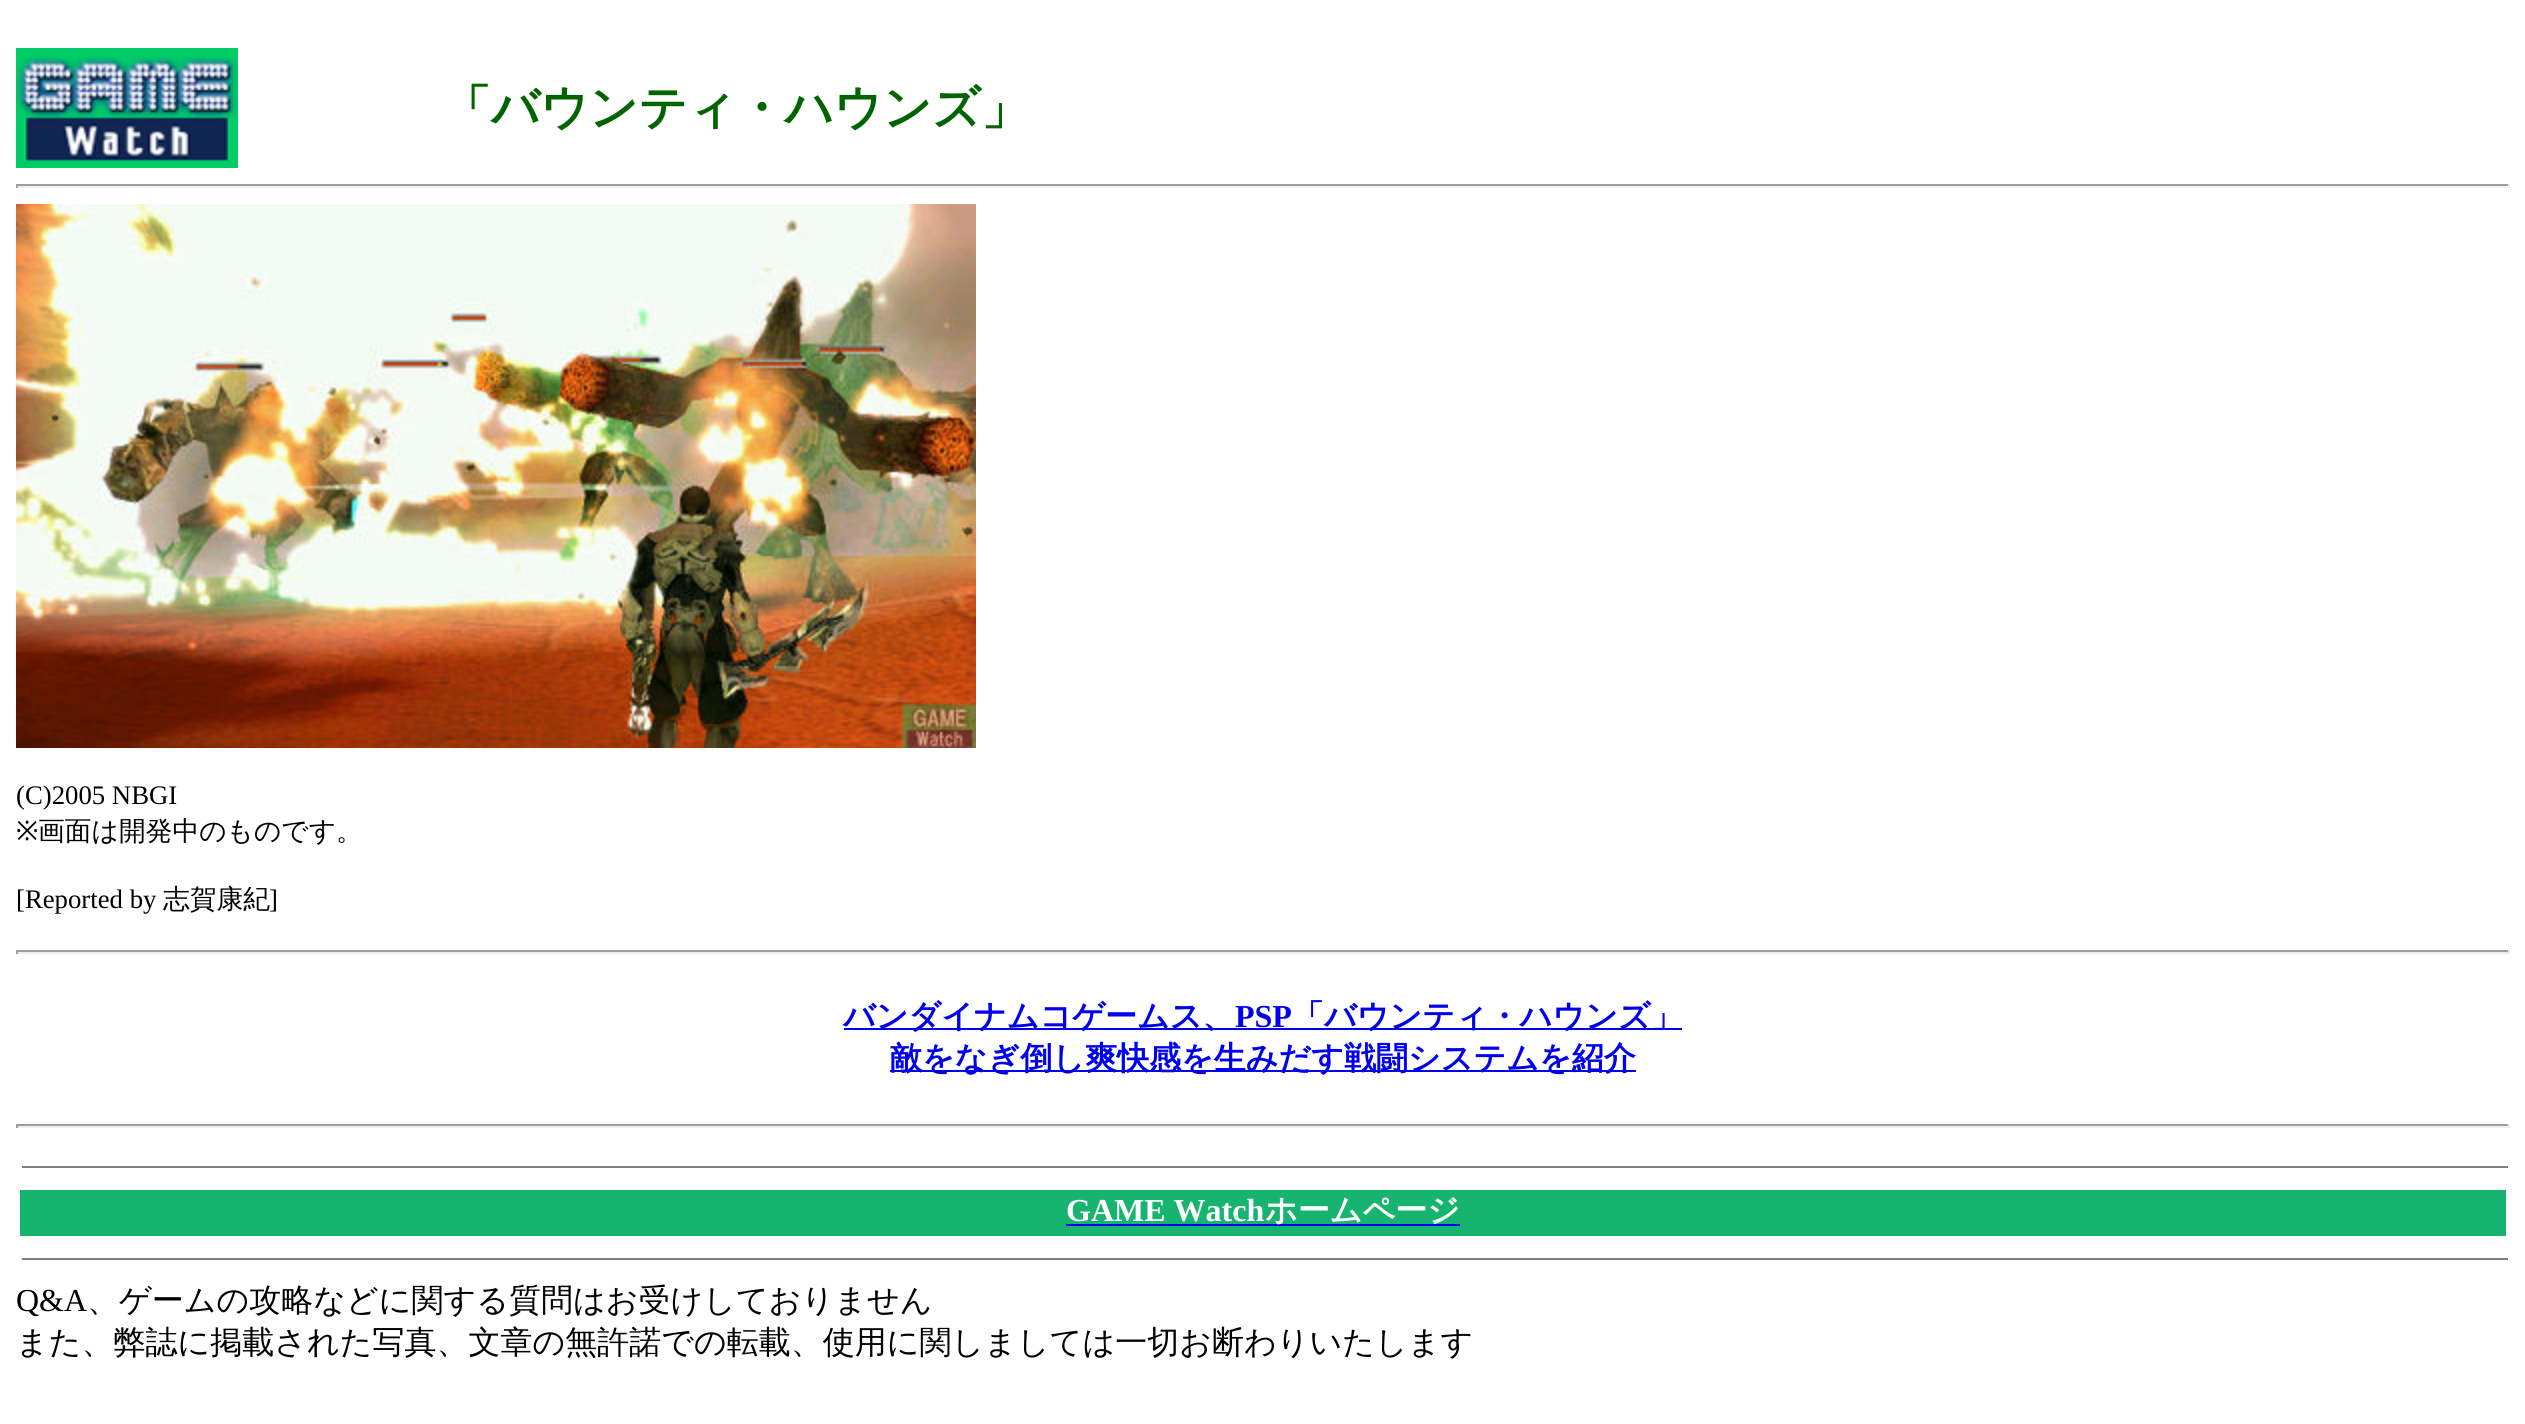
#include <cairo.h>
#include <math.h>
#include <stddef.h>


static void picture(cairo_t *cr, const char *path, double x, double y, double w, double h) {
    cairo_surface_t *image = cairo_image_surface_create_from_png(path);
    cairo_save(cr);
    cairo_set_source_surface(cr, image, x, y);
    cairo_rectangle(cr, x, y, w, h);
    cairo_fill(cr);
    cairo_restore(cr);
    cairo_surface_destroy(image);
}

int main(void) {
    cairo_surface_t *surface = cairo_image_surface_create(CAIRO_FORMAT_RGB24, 2525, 1424);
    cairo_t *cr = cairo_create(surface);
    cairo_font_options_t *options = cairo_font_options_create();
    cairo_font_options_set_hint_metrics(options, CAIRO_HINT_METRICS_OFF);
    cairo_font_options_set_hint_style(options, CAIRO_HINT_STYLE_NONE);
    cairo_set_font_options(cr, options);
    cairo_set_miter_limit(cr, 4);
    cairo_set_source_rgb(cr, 1, 1, 1);
    cairo_paint(cr);
    picture(cr, "img1.png", 16, 48, 222, 120);
    cairo_select_font_face(cr, "WenQuanYi Zen Hei", CAIRO_FONT_SLANT_NORMAL, CAIRO_FONT_WEIGHT_BOLD);
    cairo_set_font_size(cr, 48);
    cairo_set_source_rgb(cr, 0, 0.392, 0);
    cairo_move_to(cr, 443, 124);
    cairo_show_text(cr, "「バウンティ・ハウンズ」");
    cairo_set_source_rgb(cr, 0.624, 0.624, 0.624);
    cairo_rectangle(cr, 16, 184, 2494, 2);
    cairo_fill(cr);
    cairo_set_source_rgb(cr, 0.933, 0.933, 0.933);
    cairo_rectangle(cr, 2508, 184, 2, 4);
    cairo_fill(cr);
    cairo_rectangle(cr, 16, 186, 2494, 2);
    cairo_fill(cr);
    cairo_set_source_rgb(cr, 0.624, 0.624, 0.624);
    cairo_rectangle(cr, 16, 184, 2, 4);
    cairo_fill(cr);
    picture(cr, "img2.png", 16, 204, 960, 544);
    cairo_select_font_face(cr, "Liberation Serif", CAIRO_FONT_SLANT_NORMAL, CAIRO_FONT_WEIGHT_NORMAL);
    cairo_set_font_size(cr, 26.75);
    cairo_set_source_rgb(cr, 0, 0, 0);
    cairo_move_to(cr, 16, 804);
    cairo_show_text(cr, "(C)2005 NBGI");
    cairo_select_font_face(cr, "Noto Sans", CAIRO_FONT_SLANT_NORMAL, CAIRO_FONT_WEIGHT_NORMAL);
    cairo_move_to(cr, 16, 840);
    cairo_show_text(cr, "※");
    cairo_select_font_face(cr, "WenQuanYi Zen Hei Medium", CAIRO_FONT_SLANT_NORMAL, CAIRO_FONT_WEIGHT_NORMAL);
    cairo_move_to(cr, 38, 840);
    cairo_show_text(cr, "画面は開発中のものです。");
    cairo_select_font_face(cr, "Liberation Serif", CAIRO_FONT_SLANT_NORMAL, CAIRO_FONT_WEIGHT_NORMAL);
    cairo_move_to(cr, 16, 908);
    cairo_show_text(cr, "[Reported by");
    cairo_select_font_face(cr, "WenQuanYi Zen Hei Medium", CAIRO_FONT_SLANT_NORMAL, CAIRO_FONT_WEIGHT_NORMAL);
    cairo_move_to(cr, 163, 908);
    cairo_show_text(cr, "志賀康紀");
    cairo_select_font_face(cr, "Liberation Serif", CAIRO_FONT_SLANT_NORMAL, CAIRO_FONT_WEIGHT_NORMAL);
    cairo_move_to(cr, 269, 908);
    cairo_show_text(cr, "]");
    cairo_set_source_rgb(cr, 0.624, 0.624, 0.624);
    cairo_rectangle(cr, 16, 950, 2494, 2);
    cairo_fill(cr);
    cairo_set_source_rgb(cr, 0.933, 0.933, 0.933);
    cairo_rectangle(cr, 2508, 950, 2, 4);
    cairo_fill(cr);
    cairo_rectangle(cr, 16, 952, 2494, 2);
    cairo_fill(cr);
    cairo_set_source_rgb(cr, 0.624, 0.624, 0.624);
    cairo_rectangle(cr, 16, 950, 2, 4);
    cairo_fill(cr);
    cairo_set_source_rgb(cr, 0, 0, 0.933);
    cairo_rectangle(cr, 844, 1028, 838, 2);
    cairo_fill(cr);
    cairo_select_font_face(cr, "WenQuanYi Zen Hei", CAIRO_FONT_SLANT_NORMAL, CAIRO_FONT_WEIGHT_BOLD);
    cairo_set_font_size(cr, 32);
    cairo_move_to(cr, 843, 1027);
    cairo_show_text(cr, "バンダイナムコゲームス、");
    cairo_select_font_face(cr, "Liberation Serif", CAIRO_FONT_SLANT_NORMAL, CAIRO_FONT_WEIGHT_BOLD);
    cairo_move_to(cr, 1235, 1027);
    cairo_show_text(cr, "PSP");
    cairo_select_font_face(cr, "WenQuanYi Zen Hei", CAIRO_FONT_SLANT_NORMAL, CAIRO_FONT_WEIGHT_BOLD);
    cairo_move_to(cr, 1292, 1027);
    cairo_show_text(cr, "「バウンティ・ハウンズ」");
    cairo_rectangle(cr, 890, 1070, 746, 2);
    cairo_fill(cr);
    cairo_move_to(cr, 890, 1069);
    cairo_show_text(cr, "敵をなぎ倒し爽快感を生みだす戦闘システムを紹介");
    cairo_set_source_rgb(cr, 0.624, 0.624, 0.624);
    cairo_rectangle(cr, 16, 1124, 2494, 2);
    cairo_fill(cr);
    cairo_set_source_rgb(cr, 0.933, 0.933, 0.933);
    cairo_rectangle(cr, 2508, 1124, 2, 4);
    cairo_fill(cr);
    cairo_rectangle(cr, 16, 1126, 2494, 2);
    cairo_fill(cr);
    cairo_set_source_rgb(cr, 0.624, 0.624, 0.624);
    cairo_rectangle(cr, 16, 1124, 2, 4);
    cairo_fill(cr);
    cairo_set_source_rgb(cr, 0.502, 0.502, 0.502);
    cairo_rectangle(cr, 22, 1166, 2486, 2);
    cairo_fill(cr);
    cairo_set_source_rgb(cr, 0.086, 0.706, 0.431);
    cairo_rectangle(cr, 20, 1190, 2486, 46);
    cairo_fill(cr);
    cairo_select_font_face(cr, "Liberation Serif", CAIRO_FONT_SLANT_NORMAL, CAIRO_FONT_WEIGHT_BOLD);
    cairo_set_source_rgb(cr, 1, 1, 1);
    cairo_move_to(cr, 1066, 1221);
    cairo_show_text(cr, "GAME Watch");
    cairo_set_source_rgb(cr, 0, 0, 0.933);
    cairo_rectangle(cr, 1066, 1224, 394, 2);
    cairo_fill(cr);
    cairo_select_font_face(cr, "WenQuanYi Zen Hei", CAIRO_FONT_SLANT_NORMAL, CAIRO_FONT_WEIGHT_BOLD);
    cairo_set_source_rgb(cr, 1, 1, 1);
    cairo_move_to(cr, 1265, 1221);
    cairo_show_text(cr, "ホームページ");
    cairo_set_source_rgb(cr, 0.502, 0.502, 0.502);
    cairo_rectangle(cr, 22, 1258, 2486, 2);
    cairo_fill(cr);
    cairo_select_font_face(cr, "Liberation Serif", CAIRO_FONT_SLANT_NORMAL, CAIRO_FONT_WEIGHT_NORMAL);
    cairo_set_source_rgb(cr, 0, 0, 0);
    cairo_move_to(cr, 16, 1311);
    cairo_show_text(cr, "Q&A");
    cairo_select_font_face(cr, "WenQuanYi Zen Hei Medium", CAIRO_FONT_SLANT_NORMAL, CAIRO_FONT_WEIGHT_NORMAL);
    cairo_move_to(cr, 87, 1311);
    cairo_show_text(cr, "、ゲームの攻略などに関する質問はお受けしておりません");
    cairo_move_to(cr, 16, 1353);
    cairo_show_text(cr, "また、弊誌に掲載された写真、文章の無許諾での転載、使用に関しましては一切お断わりいたします");
    cairo_surface_write_to_png(surface, "page.png");
    cairo_font_options_destroy(options);
    cairo_destroy(cr);
    cairo_surface_destroy(surface);
    return 0;
}
